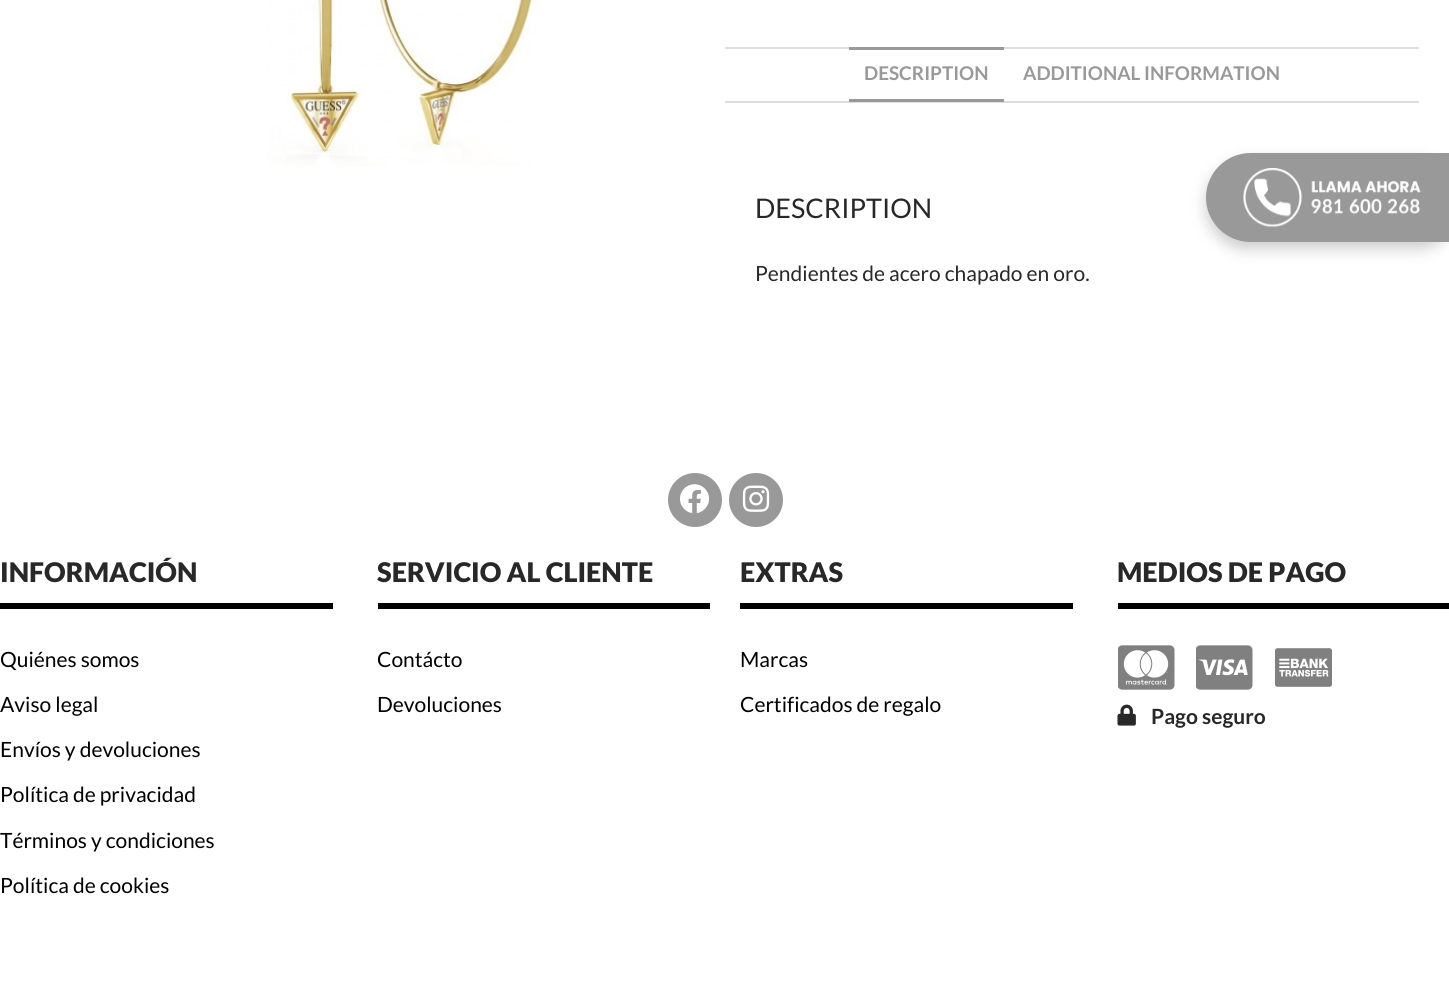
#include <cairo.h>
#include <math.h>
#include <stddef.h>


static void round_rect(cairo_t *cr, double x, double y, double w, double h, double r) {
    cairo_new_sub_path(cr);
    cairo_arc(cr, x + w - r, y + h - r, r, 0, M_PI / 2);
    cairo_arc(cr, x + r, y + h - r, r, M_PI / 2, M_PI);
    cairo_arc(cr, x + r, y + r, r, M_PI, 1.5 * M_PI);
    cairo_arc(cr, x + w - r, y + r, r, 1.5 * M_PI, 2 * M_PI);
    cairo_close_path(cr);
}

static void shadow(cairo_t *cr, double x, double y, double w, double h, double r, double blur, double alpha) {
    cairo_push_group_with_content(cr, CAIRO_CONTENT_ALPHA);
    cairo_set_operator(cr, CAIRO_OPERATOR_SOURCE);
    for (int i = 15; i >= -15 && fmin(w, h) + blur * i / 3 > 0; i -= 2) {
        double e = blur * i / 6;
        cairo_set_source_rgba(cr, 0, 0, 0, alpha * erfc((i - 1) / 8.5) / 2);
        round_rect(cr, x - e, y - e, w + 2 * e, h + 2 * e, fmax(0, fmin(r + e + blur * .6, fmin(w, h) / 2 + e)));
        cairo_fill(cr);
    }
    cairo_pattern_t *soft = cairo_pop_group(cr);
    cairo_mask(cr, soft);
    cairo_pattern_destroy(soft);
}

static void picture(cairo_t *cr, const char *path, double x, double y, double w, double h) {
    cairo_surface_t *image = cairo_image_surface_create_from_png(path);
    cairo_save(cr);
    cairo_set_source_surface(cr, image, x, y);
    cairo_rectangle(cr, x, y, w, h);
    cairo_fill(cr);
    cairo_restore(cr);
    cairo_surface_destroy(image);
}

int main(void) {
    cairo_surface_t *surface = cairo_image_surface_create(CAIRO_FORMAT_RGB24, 1449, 982);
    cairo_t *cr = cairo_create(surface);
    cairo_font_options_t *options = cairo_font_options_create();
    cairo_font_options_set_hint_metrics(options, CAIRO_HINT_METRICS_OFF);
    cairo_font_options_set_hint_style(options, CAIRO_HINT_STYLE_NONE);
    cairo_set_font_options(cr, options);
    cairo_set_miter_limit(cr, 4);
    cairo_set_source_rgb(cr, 1, 1, 1);
    cairo_paint(cr);
    picture(cr, "img1.png", 267, 0, 271, 167);
    cairo_set_source_rgb(cr, 0.867, 0.867, 0.867);
    cairo_rectangle(cr, 725, 47, 694, 2);
    cairo_fill(cr);
    cairo_rectangle(cr, 725, 101, 694, 2);
    cairo_fill(cr);
    cairo_set_source_rgb(cr, 0.6, 0.6, 0.6);
    cairo_rectangle(cr, 849, 47, 155, 3);
    cairo_fill(cr);
    cairo_rectangle(cr, 849, 99, 155, 3);
    cairo_fill(cr);
    cairo_select_font_face(cr, "Lato", CAIRO_FONT_SLANT_NORMAL, CAIRO_FONT_WEIGHT_BOLD);
    cairo_set_font_size(cr, 18.9);
    cairo_move_to(cr, 864, 80);
    cairo_show_text(cr, "DESCRIPTION");
    cairo_move_to(cr, 1023, 80);
    cairo_show_text(cr, "ADDITIONAL INFORMATION");
    cairo_select_font_face(cr, "Lato", CAIRO_FONT_SLANT_NORMAL, CAIRO_FONT_WEIGHT_NORMAL);
    cairo_set_font_size(cr, 27);
    cairo_set_source_rgb(cr, 0.157, 0.157, 0.157);
    cairo_move_to(cr, 755, 218);
    cairo_show_text(cr, "DESCRIPTION");
    cairo_set_font_size(cr, 21);
    cairo_move_to(cr, 755, 281);
    cairo_show_text(cr, "Pendientes de acero chapado en oro.");
    cairo_set_source_rgb(cr, 0.6, 0.6, 0.6);
    cairo_new_path(cr);
    cairo_arc(cr, 695, 500, 27, 0, 2 * M_PI);
    cairo_fill(cr);
    picture(cr, "img2.png", 680, 484, 29, 29);
    cairo_arc(cr, 756, 500, 27, 0, 2 * M_PI);
    cairo_fill(cr);
    picture(cr, "img3.png", 742, 485, 28, 27);
    cairo_select_font_face(cr, "Lato Black", CAIRO_FONT_SLANT_NORMAL, CAIRO_FONT_WEIGHT_NORMAL);
    cairo_set_font_size(cr, 27);
    cairo_set_source_rgb(cr, 0.157, 0.157, 0.157);
    cairo_move_to(cr, 0, 582);
    cairo_show_text(cr, "INFORMACIÓN");
    cairo_set_source_rgb(cr, 0, 0, 0);
    cairo_rectangle(cr, 0, 603, 333, 6);
    cairo_fill(cr);
    cairo_select_font_face(cr, "Lato", CAIRO_FONT_SLANT_NORMAL, CAIRO_FONT_WEIGHT_NORMAL);
    cairo_set_font_size(cr, 21);
    cairo_move_to(cr, 0, 667);
    cairo_show_text(cr, "Quiénes somos");
    cairo_move_to(cr, 0, 712);
    cairo_show_text(cr, "Aviso legal");
    cairo_move_to(cr, 0, 757);
    cairo_show_text(cr, "Envíos y devoluciones");
    cairo_move_to(cr, 0, 802);
    cairo_show_text(cr, "Política de privacidad");
    cairo_move_to(cr, 0, 848);
    cairo_show_text(cr, "Términos y condiciones");
    cairo_move_to(cr, 0, 893);
    cairo_show_text(cr, "Política de cookies");
    cairo_select_font_face(cr, "Lato Black", CAIRO_FONT_SLANT_NORMAL, CAIRO_FONT_WEIGHT_NORMAL);
    cairo_set_font_size(cr, 27);
    cairo_set_source_rgb(cr, 0.157, 0.157, 0.157);
    cairo_move_to(cr, 377, 582);
    cairo_show_text(cr, "SERVICIO AL CLIENTE");
    cairo_set_source_rgb(cr, 0, 0, 0);
    cairo_rectangle(cr, 378, 603, 332, 6);
    cairo_fill(cr);
    cairo_select_font_face(cr, "Lato", CAIRO_FONT_SLANT_NORMAL, CAIRO_FONT_WEIGHT_NORMAL);
    cairo_set_font_size(cr, 21);
    cairo_move_to(cr, 377, 667);
    cairo_show_text(cr, "Contácto");
    cairo_move_to(cr, 377, 712);
    cairo_show_text(cr, "Devoluciones");
    cairo_select_font_face(cr, "Lato Black", CAIRO_FONT_SLANT_NORMAL, CAIRO_FONT_WEIGHT_NORMAL);
    cairo_set_font_size(cr, 27);
    cairo_set_source_rgb(cr, 0.157, 0.157, 0.157);
    cairo_move_to(cr, 740, 582);
    cairo_show_text(cr, "EXTRAS");
    cairo_set_source_rgb(cr, 0, 0, 0);
    cairo_rectangle(cr, 740, 603, 333, 6);
    cairo_fill(cr);
    cairo_select_font_face(cr, "Lato", CAIRO_FONT_SLANT_NORMAL, CAIRO_FONT_WEIGHT_NORMAL);
    cairo_set_font_size(cr, 21);
    cairo_move_to(cr, 740, 667);
    cairo_show_text(cr, "Marcas");
    cairo_move_to(cr, 740, 712);
    cairo_show_text(cr, "Certificados de regalo");
    cairo_select_font_face(cr, "Lato Black", CAIRO_FONT_SLANT_NORMAL, CAIRO_FONT_WEIGHT_NORMAL);
    cairo_set_font_size(cr, 27);
    cairo_set_source_rgb(cr, 0.157, 0.157, 0.157);
    cairo_move_to(cr, 1117, 582);
    cairo_show_text(cr, "MEDIOS DE PAGO");
    cairo_set_source_rgb(cr, 0, 0, 0);
    cairo_rectangle(cr, 1118, 603, 331, 6);
    cairo_fill(cr);
    picture(cr, "img4.png", 1118, 645, 57, 45);
    picture(cr, "img5.png", 1196, 645, 57, 45);
    picture(cr, "img6.png", 1275, 648, 57, 39);
    picture(cr, "img7.png", 1117, 704, 19, 22);
    cairo_select_font_face(cr, "Lato", CAIRO_FONT_SLANT_NORMAL, CAIRO_FONT_WEIGHT_BOLD);
    cairo_set_font_size(cr, 21);
    cairo_set_source_rgb(cr, 0.157, 0.157, 0.157);
    cairo_move_to(cr, 1151, 724);
    cairo_show_text(cr, "Pago seguro");
    cairo_set_source_rgb(cr, 0, 0, 0);
    shadow(cr, 1206, 161, 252, 88, 44, 7.5, 0.2);
    cairo_set_source_rgb(cr, 0.6, 0.6, 0.6);
    cairo_new_path(cr);
    cairo_move_to(cr, 1250.5, 153);
    cairo_line_to(cr, 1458, 153);
    cairo_line_to(cr, 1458, 242);
    cairo_line_to(cr, 1250.5, 242);
    cairo_curve_to(cr, 1226, 242, 1206, 222, 1206, 197.5);
    cairo_curve_to(cr, 1206, 173, 1226, 153, 1250.5, 153);
    cairo_close_path(cr);
    cairo_fill(cr);
    picture(cr, "img8.png", 1243, 168, 178, 59);
    cairo_surface_write_to_png(surface, "page.png");
    cairo_font_options_destroy(options);
    cairo_destroy(cr);
    cairo_surface_destroy(surface);
    return 0;
}
